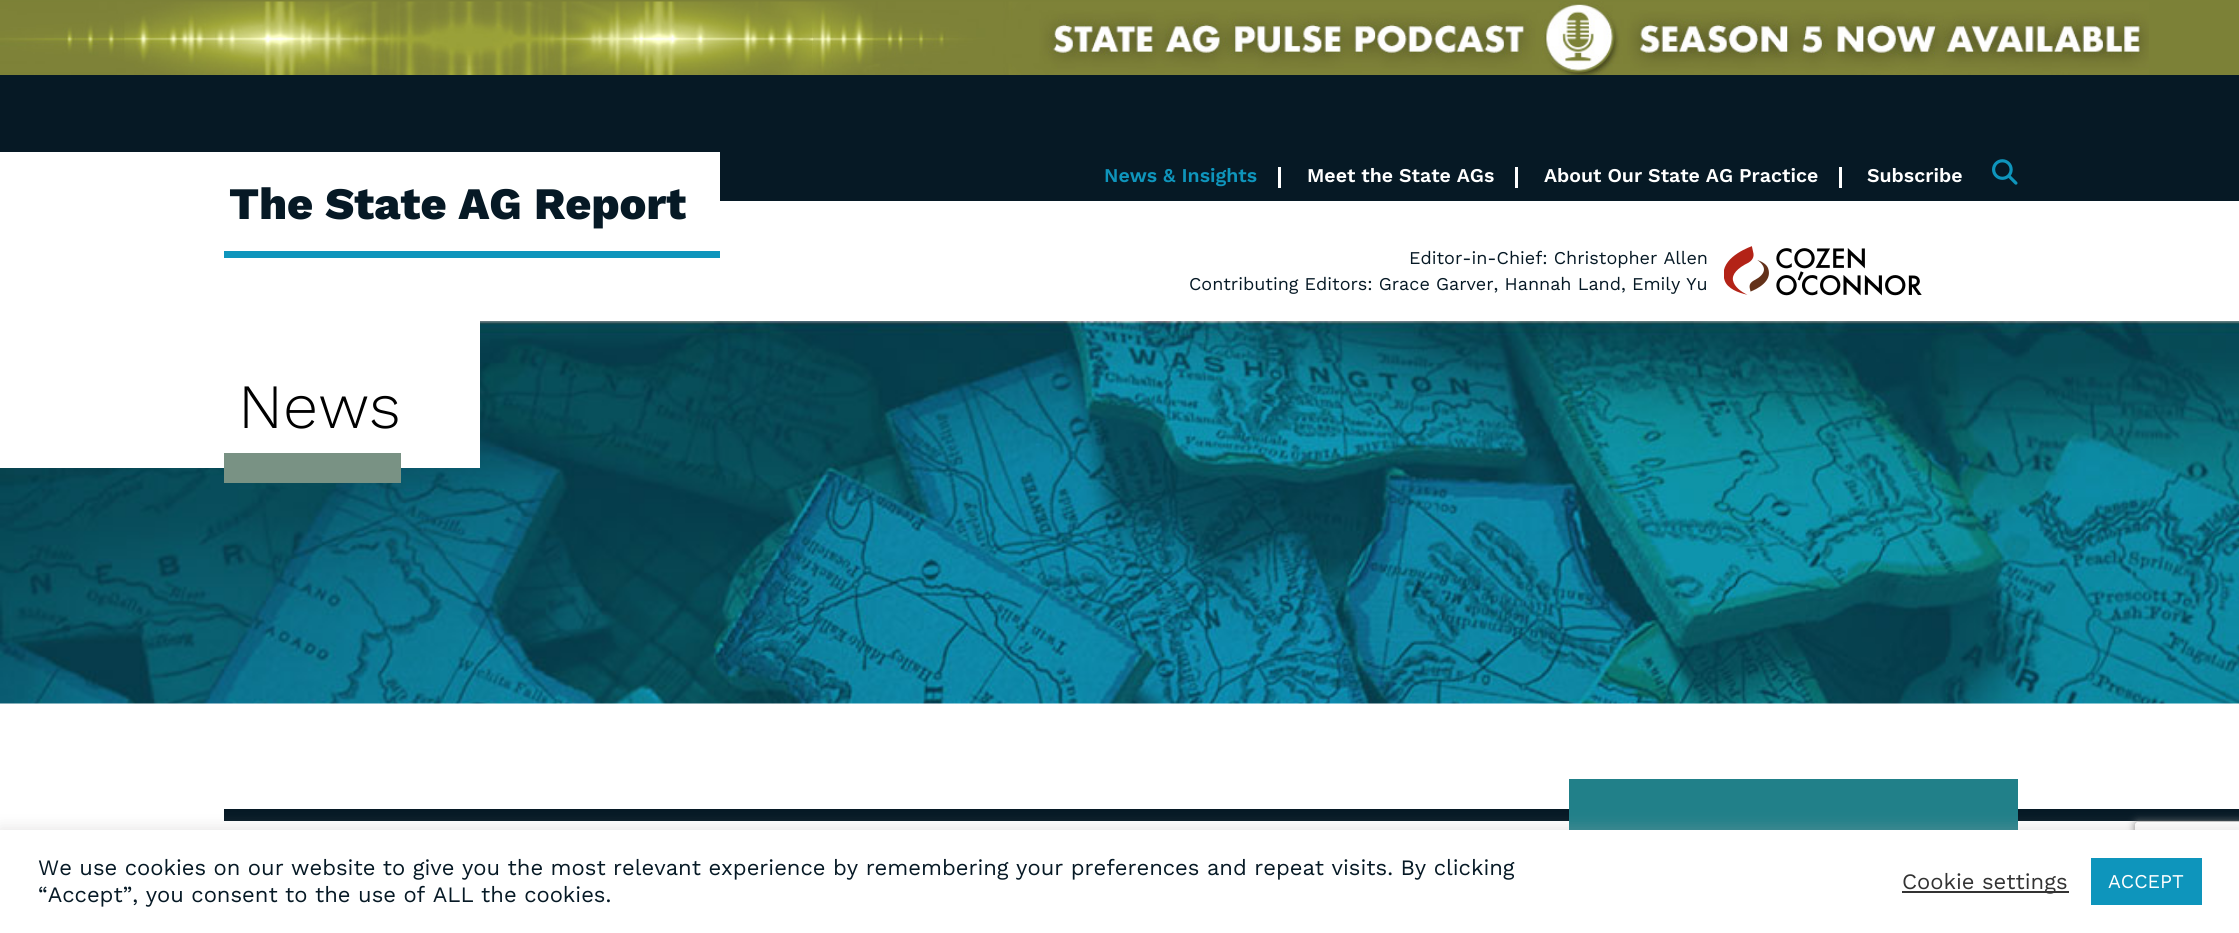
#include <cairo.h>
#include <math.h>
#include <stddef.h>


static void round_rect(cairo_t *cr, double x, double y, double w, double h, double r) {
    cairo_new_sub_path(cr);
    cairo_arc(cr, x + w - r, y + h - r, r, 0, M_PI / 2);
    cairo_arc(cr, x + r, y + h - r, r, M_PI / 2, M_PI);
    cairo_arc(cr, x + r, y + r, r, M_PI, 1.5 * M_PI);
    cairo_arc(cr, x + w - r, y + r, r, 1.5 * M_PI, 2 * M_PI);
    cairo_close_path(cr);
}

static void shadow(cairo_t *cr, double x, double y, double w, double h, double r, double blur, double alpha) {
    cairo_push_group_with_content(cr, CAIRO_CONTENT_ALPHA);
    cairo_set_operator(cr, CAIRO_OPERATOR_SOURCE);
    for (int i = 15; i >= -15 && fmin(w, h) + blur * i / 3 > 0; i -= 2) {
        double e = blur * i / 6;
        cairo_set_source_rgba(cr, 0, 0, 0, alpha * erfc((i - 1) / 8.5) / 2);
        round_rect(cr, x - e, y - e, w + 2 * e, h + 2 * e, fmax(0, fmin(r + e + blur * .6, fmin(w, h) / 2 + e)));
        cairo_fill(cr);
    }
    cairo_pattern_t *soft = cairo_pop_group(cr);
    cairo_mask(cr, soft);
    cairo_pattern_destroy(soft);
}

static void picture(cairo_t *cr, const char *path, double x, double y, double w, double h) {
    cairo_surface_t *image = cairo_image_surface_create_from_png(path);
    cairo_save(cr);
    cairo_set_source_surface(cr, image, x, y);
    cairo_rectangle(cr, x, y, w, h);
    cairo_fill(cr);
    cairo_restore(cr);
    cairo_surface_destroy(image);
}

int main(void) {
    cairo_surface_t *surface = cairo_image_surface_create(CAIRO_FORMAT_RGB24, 2239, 933);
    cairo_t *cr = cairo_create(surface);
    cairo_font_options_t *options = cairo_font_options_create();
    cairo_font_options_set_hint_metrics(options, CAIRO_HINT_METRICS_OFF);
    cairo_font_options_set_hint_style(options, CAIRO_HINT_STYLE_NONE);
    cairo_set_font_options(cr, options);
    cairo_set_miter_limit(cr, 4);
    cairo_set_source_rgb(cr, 1, 1, 1);
    cairo_paint(cr);
    cairo_set_source_rgb(cr, 0.486, 0.506, 0.216);
    cairo_rectangle(cr, 0, 0, 2239, 75);
    cairo_fill(cr);
    picture(cr, "img1.png", 0, 1, 2149, 74);
    cairo_set_source_rgb(cr, 0.024, 0.098, 0.145);
    cairo_rectangle(cr, 0, 75, 2239, 126);
    cairo_fill(cr);
    cairo_set_source_rgb(cr, 1, 1, 1);
    cairo_rectangle(cr, 0, 152, 720, 49);
    cairo_fill(cr);
    cairo_set_source_rgb(cr, 0.055, 0.584, 0.737);
    cairo_rectangle(cr, 224, 251, 496, 7);
    cairo_fill(cr);
    cairo_select_font_face(cr, "Work Sans ExtraBold", CAIRO_FONT_SLANT_NORMAL, CAIRO_FONT_WEIGHT_NORMAL);
    cairo_set_font_size(cr, 45);
    cairo_set_source_rgb(cr, 0.024, 0.098, 0.145);
    cairo_move_to(cr, 229, 219);
    cairo_show_text(cr, "The State AG Report");
    cairo_select_font_face(cr, "Work Sans SemiBold", CAIRO_FONT_SLANT_NORMAL, CAIRO_FONT_WEIGHT_NORMAL);
    cairo_set_font_size(cr, 19.5);
    cairo_set_source_rgb(cr, 0.055, 0.584, 0.737);
    cairo_move_to(cr, 1104, 182);
    cairo_show_text(cr, "News & Insights");
    cairo_set_source_rgb(cr, 1, 1, 1);
    cairo_rectangle(cr, 1278, 167, 3, 21);
    cairo_fill(cr);
    cairo_move_to(cr, 1307, 182);
    cairo_show_text(cr, "Meet the State AGs");
    cairo_rectangle(cr, 1515, 167, 3, 21);
    cairo_fill(cr);
    cairo_move_to(cr, 1544, 182);
    cairo_show_text(cr, "About Our State AG Practice");
    cairo_rectangle(cr, 1839, 167, 3, 21);
    cairo_fill(cr);
    cairo_move_to(cr, 1867, 182);
    cairo_show_text(cr, "Subscribe");
    picture(cr, "img2.png", 1992, 159, 26, 26);
    cairo_select_font_face(cr, "Work Sans", CAIRO_FONT_SLANT_NORMAL, CAIRO_FONT_WEIGHT_NORMAL);
    cairo_set_font_size(cr, 18);
    cairo_set_source_rgb(cr, 0.024, 0.098, 0.145);
    cairo_move_to(cr, 1409, 264);
    cairo_show_text(cr, "Editor-in-Chief: Christopher Allen");
    cairo_move_to(cr, 1189, 290);
    cairo_show_text(cr, "Contributing Editors: Grace Garver, Hannah Land, Emily Yu");
    picture(cr, "img3.png", 1724, 246, 198, 50);
    picture(cr, "img4.png", 0, 321, 2239, 383);
    cairo_set_source_rgb(cr, 1, 1, 1);
    cairo_rectangle(cr, 0, 321, 480, 147);
    cairo_fill(cr);
    cairo_select_font_face(cr, "Work Sans Light", CAIRO_FONT_SLANT_NORMAL, CAIRO_FONT_WEIGHT_NORMAL);
    cairo_set_font_size(cr, 63);
    cairo_set_source_rgb(cr, 0, 0, 0);
    cairo_move_to(cr, 238, 428);
    cairo_show_text(cr, "News");
    cairo_set_source_rgb(cr, 0.475, 0.573, 0.518);
    cairo_rectangle(cr, 224, 453, 177, 30);
    cairo_fill(cr);
    cairo_set_source_rgb(cr, 0.024, 0.098, 0.145);
    cairo_rectangle(cr, 224, 809, 2015, 12);
    cairo_fill(cr);
    cairo_set_source_rgb(cr, 0.129, 0.502, 0.537);
    cairo_rectangle(cr, 1569, 779, 449, 51);
    cairo_fill(cr);
    cairo_save(cr);
    cairo_set_fill_rule(cr, CAIRO_FILL_RULE_EVEN_ODD);
    cairo_new_path(cr);
    cairo_move_to(cr, 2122, 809);
    cairo_line_to(cr, 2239, 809);
    cairo_line_to(cr, 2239, 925);
    cairo_line_to(cr, 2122, 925);
    cairo_close_path(cr);
    cairo_move_to(cr, 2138, 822);
    cairo_line_to(cr, 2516, 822);
    cairo_curve_to(cr, 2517.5, 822, 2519, 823.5, 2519, 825);
    cairo_line_to(cr, 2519, 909);
    cairo_curve_to(cr, 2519, 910.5, 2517.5, 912, 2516, 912);
    cairo_line_to(cr, 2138, 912);
    cairo_curve_to(cr, 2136.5, 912, 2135, 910.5, 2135, 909);
    cairo_line_to(cr, 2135, 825);
    cairo_curve_to(cr, 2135, 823.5, 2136.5, 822, 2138, 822);
    cairo_close_path(cr);
    cairo_clip(cr);
    cairo_set_source_rgb(cr, 0.502, 0.502, 0.502);
    shadow(cr, 2135, 822, 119, 90, 3, 4, 1);
    cairo_restore(cr);
    cairo_set_source_rgb(cr, 0.675, 0.671, 0.671);
    shadow(cr, 0, 828, 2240, 104, 0, 7.5, 0.3);
    cairo_set_source_rgb(cr, 1, 1, 1);
    cairo_rectangle(cr, 0, 830, 2239, 103);
    cairo_fill(cr);
    cairo_select_font_face(cr, "Work Sans", CAIRO_FONT_SLANT_NORMAL, CAIRO_FONT_WEIGHT_NORMAL);
    cairo_set_font_size(cr, 22);
    cairo_set_source_rgb(cr, 0.024, 0.098, 0.145);
    cairo_move_to(cr, 38, 875);
    cairo_show_text(cr, "We use cookies on our website to give you the most relevant experience by remembering your preferences and repeat visits. By clicking");
    cairo_move_to(cr, 38, 902);
    cairo_show_text(cr, "“Accept”, you consent to the use of ALL the cookies.");
    cairo_set_source_rgb(cr, 0.2, 0.2, 0.2);
    cairo_rectangle(cr, 1902, 891, 167, 2);
    cairo_fill(cr);
    cairo_move_to(cr, 1902, 889);
    cairo_show_text(cr, "Cookie settings");
    cairo_set_source_rgb(cr, 0.055, 0.584, 0.737);
    cairo_rectangle(cr, 2091, 858, 111, 47);
    cairo_fill(cr);
    cairo_set_font_size(cr, 19.5);
    cairo_set_source_rgb(cr, 1, 1, 1);
    cairo_move_to(cr, 2108, 888);
    cairo_show_text(cr, "ACCEPT");
    cairo_surface_write_to_png(surface, "page.png");
    cairo_font_options_destroy(options);
    cairo_destroy(cr);
    cairo_surface_destroy(surface);
    return 0;
}
